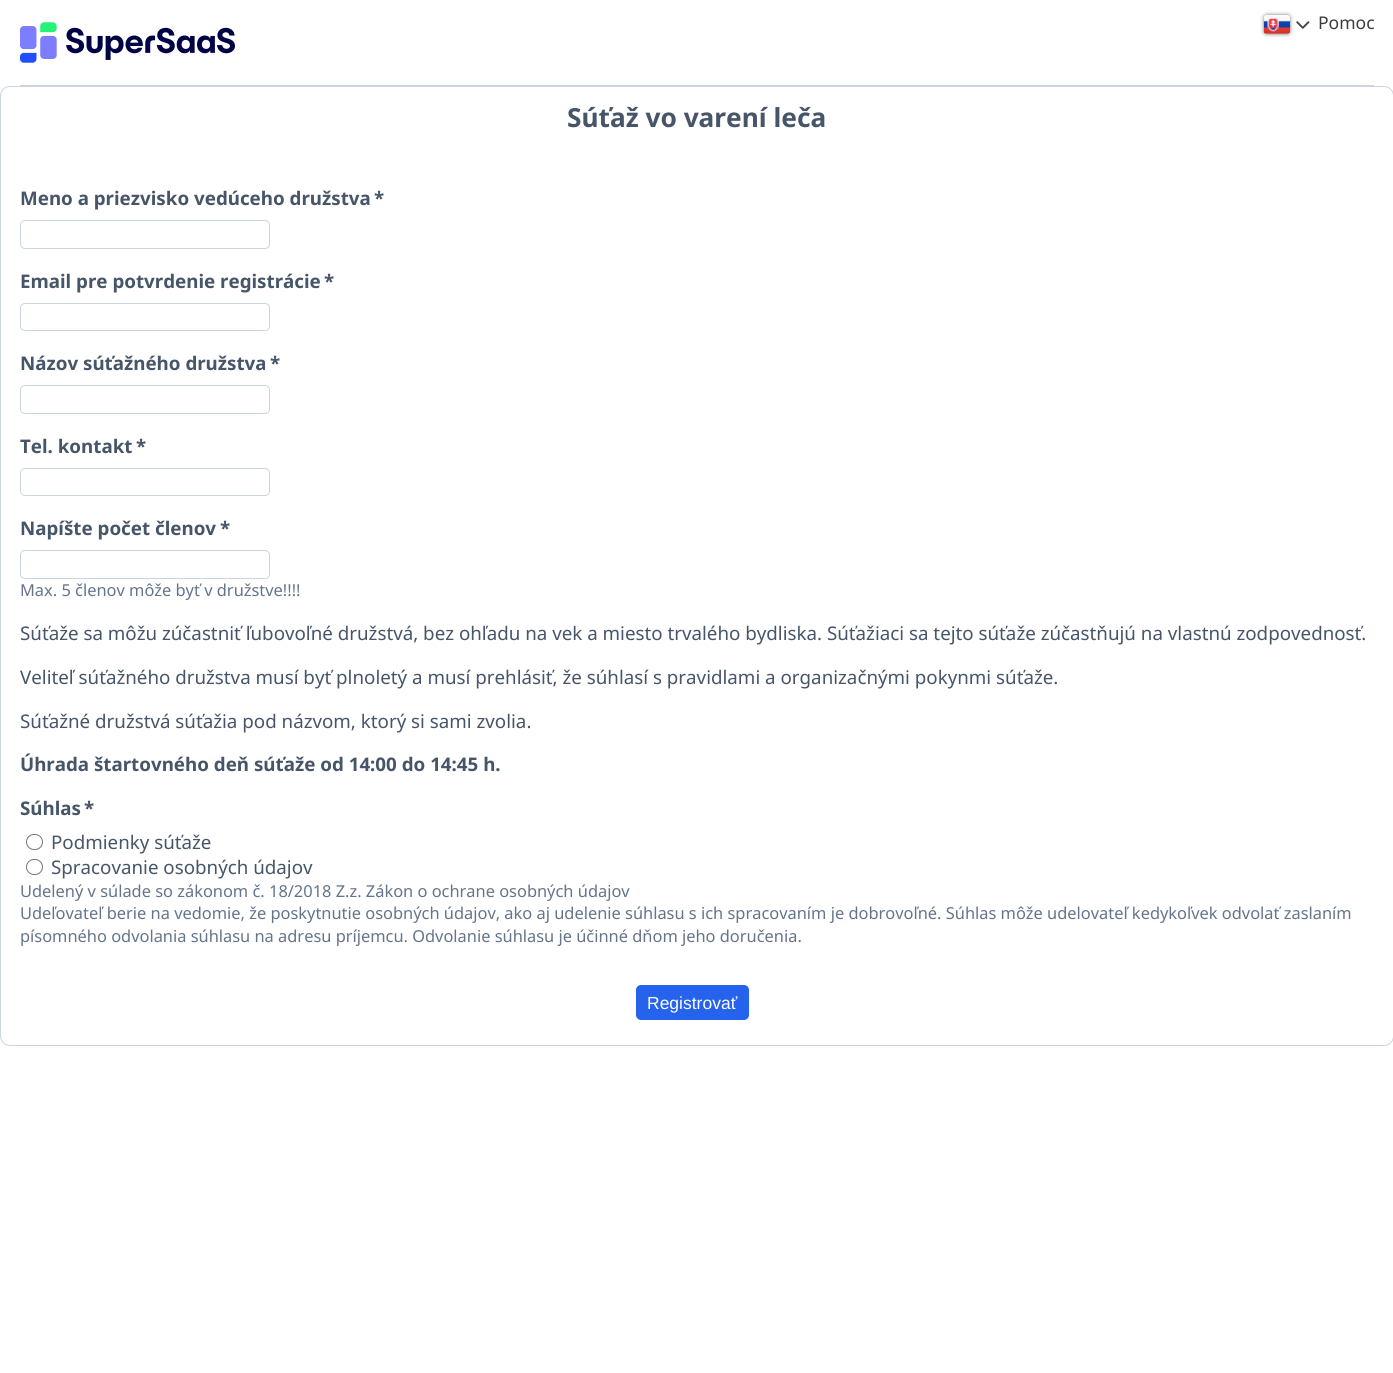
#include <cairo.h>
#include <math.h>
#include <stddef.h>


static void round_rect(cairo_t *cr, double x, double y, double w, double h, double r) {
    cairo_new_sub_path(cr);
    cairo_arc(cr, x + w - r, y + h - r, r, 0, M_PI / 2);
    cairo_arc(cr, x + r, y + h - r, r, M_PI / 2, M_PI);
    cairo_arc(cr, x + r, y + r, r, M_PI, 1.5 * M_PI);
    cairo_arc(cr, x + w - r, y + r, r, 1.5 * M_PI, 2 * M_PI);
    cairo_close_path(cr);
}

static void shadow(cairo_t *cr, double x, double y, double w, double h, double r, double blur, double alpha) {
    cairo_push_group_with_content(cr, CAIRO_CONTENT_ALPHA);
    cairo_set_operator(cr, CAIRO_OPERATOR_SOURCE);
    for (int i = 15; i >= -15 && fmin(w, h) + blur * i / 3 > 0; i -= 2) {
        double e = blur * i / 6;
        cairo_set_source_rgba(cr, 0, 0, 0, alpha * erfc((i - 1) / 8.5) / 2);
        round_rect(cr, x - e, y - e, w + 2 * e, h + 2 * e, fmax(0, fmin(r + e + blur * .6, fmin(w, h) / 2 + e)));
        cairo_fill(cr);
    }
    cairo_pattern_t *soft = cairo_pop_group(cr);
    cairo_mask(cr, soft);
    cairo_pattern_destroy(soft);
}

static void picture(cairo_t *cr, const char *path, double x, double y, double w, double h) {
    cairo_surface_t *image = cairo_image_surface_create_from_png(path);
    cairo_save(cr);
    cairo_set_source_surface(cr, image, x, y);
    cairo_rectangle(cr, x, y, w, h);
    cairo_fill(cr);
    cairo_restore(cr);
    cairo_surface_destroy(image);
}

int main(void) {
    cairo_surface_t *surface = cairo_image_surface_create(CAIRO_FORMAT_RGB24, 1393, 1373);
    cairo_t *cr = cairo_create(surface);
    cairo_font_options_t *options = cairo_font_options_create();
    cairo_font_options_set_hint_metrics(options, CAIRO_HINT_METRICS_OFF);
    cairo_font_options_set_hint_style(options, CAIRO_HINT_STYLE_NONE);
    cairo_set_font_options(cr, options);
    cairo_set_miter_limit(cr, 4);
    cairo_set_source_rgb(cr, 1, 1, 1);
    cairo_paint(cr);
    cairo_set_source_rgb(cr, 0.467, 0.467, 0.467);
    shadow(cr, 1264, 15, 26, 19, 2.5, 2, 1);
    picture(cr, "img1.png", 1263, 15, 27, 19);
    picture(cr, "img2.png", 1296, 21, 14, 8);
    cairo_select_font_face(cr, "Noto Sans", CAIRO_FONT_SLANT_NORMAL, CAIRO_FONT_WEIGHT_NORMAL);
    cairo_set_font_size(cr, 17.5);
    cairo_set_source_rgb(cr, 0.235, 0.235, 0.239);
    cairo_move_to(cr, 1318, 29);
    cairo_show_text(cr, "Pomoc");
    cairo_set_source_rgb(cr, 0.796, 0.835, 0.882);
    cairo_rectangle(cr, 20, 85, 1354, 1);
    cairo_fill(cr);
    picture(cr, "img3.png", 20, 22, 215, 41);
    round_rect(cr, 0.5, 86.5, 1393, 959, 9.5);
    cairo_set_line_width(cr, 1);
    cairo_stroke(cr);
    cairo_select_font_face(cr, "Noto Sans", CAIRO_FONT_SLANT_NORMAL, CAIRO_FONT_WEIGHT_BOLD);
    cairo_set_font_size(cr, 26.25);
    cairo_set_source_rgb(cr, 0.278, 0.333, 0.412);
    cairo_move_to(cr, 567, 127);
    cairo_show_text(cr, "Súťaž vo varení leča");
    cairo_set_font_size(cr, 18.75);
    cairo_move_to(cr, 20, 205);
    cairo_show_text(cr, "Meno a priezvisko vedúceho družstva");
    cairo_move_to(cr, 374, 205);
    cairo_show_text(cr, "*");
    round_rect(cr, 20.5, 220.5, 249, 28, 4.5);
    cairo_set_source_rgb(cr, 0.796, 0.835, 0.882);
    cairo_stroke(cr);
    cairo_set_source_rgb(cr, 0.278, 0.333, 0.412);
    cairo_move_to(cr, 20, 288);
    cairo_show_text(cr, "Email pre potvrdenie registrácie");
    cairo_move_to(cr, 324, 288);
    cairo_show_text(cr, "*");
    round_rect(cr, 20.5, 303.5, 249, 27, 4.5);
    cairo_set_source_rgb(cr, 0.796, 0.835, 0.882);
    cairo_stroke(cr);
    cairo_set_source_rgb(cr, 0.278, 0.333, 0.412);
    cairo_move_to(cr, 20, 370);
    cairo_show_text(cr, "Názov súťažného družstva");
    cairo_move_to(cr, 270, 370);
    cairo_show_text(cr, "*");
    round_rect(cr, 20.5, 385.5, 249, 28, 4.5);
    cairo_set_source_rgb(cr, 0.796, 0.835, 0.882);
    cairo_stroke(cr);
    cairo_set_source_rgb(cr, 0.278, 0.333, 0.412);
    cairo_move_to(cr, 20, 453);
    cairo_show_text(cr, "Tel. kontakt");
    cairo_move_to(cr, 136, 453);
    cairo_show_text(cr, "*");
    round_rect(cr, 20.5, 468.5, 249, 27, 4.5);
    cairo_set_source_rgb(cr, 0.796, 0.835, 0.882);
    cairo_stroke(cr);
    cairo_set_source_rgb(cr, 0.278, 0.333, 0.412);
    cairo_move_to(cr, 20, 535);
    cairo_show_text(cr, "Napíšte počet členov");
    cairo_move_to(cr, 220, 535);
    cairo_show_text(cr, "*");
    round_rect(cr, 20.5, 550.5, 249, 28, 4.5);
    cairo_set_source_rgb(cr, 0.796, 0.835, 0.882);
    cairo_stroke(cr);
    cairo_select_font_face(cr, "Noto Sans", CAIRO_FONT_SLANT_NORMAL, CAIRO_FONT_WEIGHT_NORMAL);
    cairo_set_font_size(cr, 16.4);
    cairo_set_source_rgb(cr, 0.392, 0.455, 0.545);
    cairo_move_to(cr, 20, 596);
    cairo_show_text(cr, "Max. 5 členov môže byť v družstve!!!!");
    cairo_set_font_size(cr, 18.75);
    cairo_set_source_rgb(cr, 0.278, 0.333, 0.412);
    cairo_move_to(cr, 20, 640);
    cairo_show_text(cr, "Súťaže sa môžu zúčastniť ľubovoľné družstvá, bez ohľadu na vek a miesto trvalého bydliska. Súťažiaci sa tejto súťaže zúčastňujú na vlastnú zodpovednosť.");
    cairo_move_to(cr, 20, 684);
    cairo_show_text(cr, "Veliteľ súťažného družstva musí byť plnoletý a musí prehlásiť, že súhlasí s pravidlami a organizačnými pokynmi súťaže.");
    cairo_move_to(cr, 20, 728);
    cairo_show_text(cr, "Súťažné družstvá súťažia pod názvom, ktorý si sami zvolia.");
    cairo_select_font_face(cr, "Noto Sans", CAIRO_FONT_SLANT_NORMAL, CAIRO_FONT_WEIGHT_BOLD);
    cairo_move_to(cr, 20, 771);
    cairo_show_text(cr, "Úhrada štartovného deň súťaže od 14:00 do 14:45 h.");
    cairo_move_to(cr, 20, 815);
    cairo_show_text(cr, "Súhlas");
    cairo_move_to(cr, 84, 815);
    cairo_show_text(cr, "*");
    round_rect(cr, 26.5, 834.5, 16, 15, 7.5);
    cairo_set_source_rgb(cr, 0.463, 0.463, 0.463);
    cairo_stroke(cr);
    cairo_select_font_face(cr, "Noto Sans", CAIRO_FONT_SLANT_NORMAL, CAIRO_FONT_WEIGHT_NORMAL);
    cairo_set_source_rgb(cr, 0.278, 0.333, 0.412);
    cairo_move_to(cr, 51, 849);
    cairo_show_text(cr, "Podmienky súťaže");
    round_rect(cr, 26.5, 859.5, 16, 15, 7.5);
    cairo_set_source_rgb(cr, 0.463, 0.463, 0.463);
    cairo_stroke(cr);
    cairo_set_source_rgb(cr, 0.278, 0.333, 0.412);
    cairo_move_to(cr, 51, 874);
    cairo_show_text(cr, "Spracovanie osobných údajov");
    cairo_set_font_size(cr, 16.4);
    cairo_set_source_rgb(cr, 0.392, 0.455, 0.545);
    cairo_move_to(cr, 20, 897);
    cairo_show_text(cr, "Udelený v súlade so zákonom č. 18/2018 Z.z. Zákon o ochrane osobných údajov");
    cairo_move_to(cr, 20, 919);
    cairo_show_text(cr, "Udeľovateľ berie na vedomie, že poskytnutie osobných údajov, ako aj udelenie súhlasu s ich spracovaním je dobrovoľné. Súhlas môže udelovateľ kedykoľvek odvolať zaslaním");
    cairo_move_to(cr, 20, 942);
    cairo_show_text(cr, "písomného odvolania súhlasu na adresu príjemcu. Odvolanie súhlasu je účinné dňom jeho doručenia.");
    cairo_set_source_rgb(cr, 0.145, 0.388, 0.922);
    round_rect(cr, 636, 985, 113, 35, 5);
    cairo_fill(cr);
    cairo_select_font_face(cr, "Liberation Sans", CAIRO_FONT_SLANT_NORMAL, CAIRO_FONT_WEIGHT_NORMAL);
    cairo_set_font_size(cr, 17.5);
    cairo_set_source_rgb(cr, 1, 1, 1);
    cairo_move_to(cr, 647, 1009);
    cairo_show_text(cr, "Registrovať");
    cairo_surface_write_to_png(surface, "page.png");
    cairo_font_options_destroy(options);
    cairo_destroy(cr);
    cairo_surface_destroy(surface);
    return 0;
}
